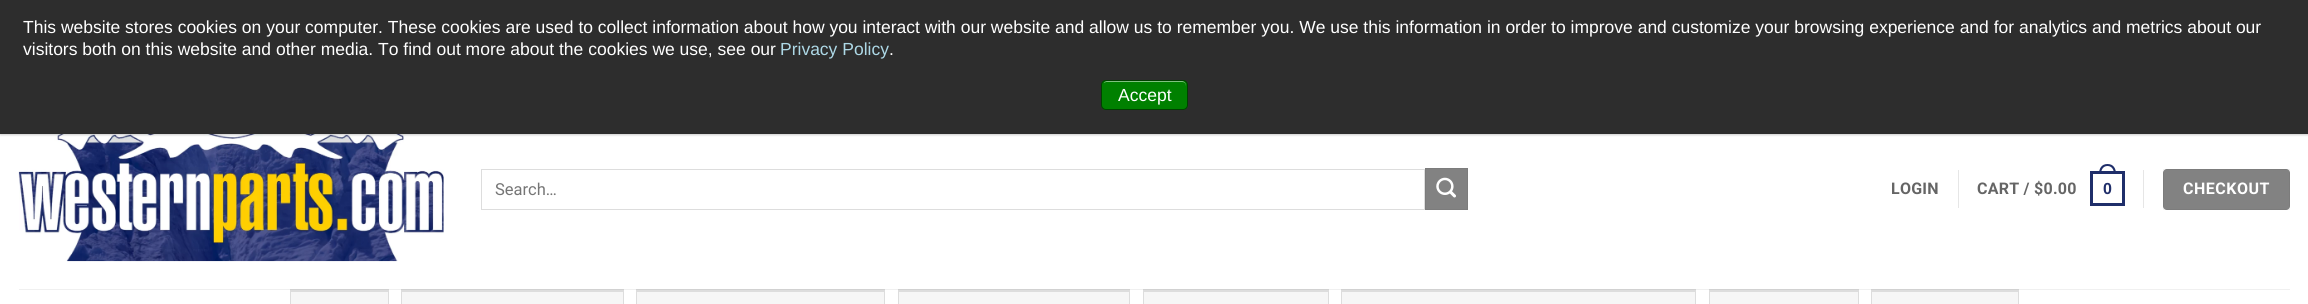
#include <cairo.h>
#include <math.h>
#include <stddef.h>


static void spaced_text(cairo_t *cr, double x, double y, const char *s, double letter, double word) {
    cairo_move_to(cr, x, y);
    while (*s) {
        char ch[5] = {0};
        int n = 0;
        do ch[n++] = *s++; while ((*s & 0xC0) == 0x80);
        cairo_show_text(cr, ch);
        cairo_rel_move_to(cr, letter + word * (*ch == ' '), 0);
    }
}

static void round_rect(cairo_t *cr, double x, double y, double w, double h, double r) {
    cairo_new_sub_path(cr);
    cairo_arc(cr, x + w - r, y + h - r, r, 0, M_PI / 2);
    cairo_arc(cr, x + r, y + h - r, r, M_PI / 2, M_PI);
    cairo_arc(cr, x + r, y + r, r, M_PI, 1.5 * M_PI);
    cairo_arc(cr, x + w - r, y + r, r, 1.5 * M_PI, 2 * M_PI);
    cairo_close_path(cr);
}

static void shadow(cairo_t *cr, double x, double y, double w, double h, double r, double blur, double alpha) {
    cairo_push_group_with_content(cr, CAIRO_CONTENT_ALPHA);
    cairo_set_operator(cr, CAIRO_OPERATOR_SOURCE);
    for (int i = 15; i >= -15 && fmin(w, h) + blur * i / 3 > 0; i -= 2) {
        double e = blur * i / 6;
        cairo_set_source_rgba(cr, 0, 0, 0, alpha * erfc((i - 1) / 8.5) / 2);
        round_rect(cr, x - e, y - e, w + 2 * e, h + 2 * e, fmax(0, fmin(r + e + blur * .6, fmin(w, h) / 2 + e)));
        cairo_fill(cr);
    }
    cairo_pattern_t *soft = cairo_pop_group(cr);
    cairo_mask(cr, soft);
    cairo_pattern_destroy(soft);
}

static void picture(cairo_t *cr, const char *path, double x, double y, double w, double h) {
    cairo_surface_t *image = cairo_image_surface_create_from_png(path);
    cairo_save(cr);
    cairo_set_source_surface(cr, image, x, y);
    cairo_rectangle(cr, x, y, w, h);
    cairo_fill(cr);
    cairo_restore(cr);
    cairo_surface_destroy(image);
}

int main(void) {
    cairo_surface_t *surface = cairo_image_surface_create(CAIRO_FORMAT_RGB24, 2308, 304);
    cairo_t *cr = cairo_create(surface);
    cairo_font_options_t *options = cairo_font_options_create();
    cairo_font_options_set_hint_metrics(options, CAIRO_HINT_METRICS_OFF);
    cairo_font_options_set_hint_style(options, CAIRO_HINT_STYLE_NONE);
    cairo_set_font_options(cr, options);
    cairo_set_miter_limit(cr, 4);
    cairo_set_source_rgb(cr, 1, 1, 1);
    cairo_paint(cr);
    cairo_set_source_rgb(cr, 0.941, 0.941, 0.941);
    cairo_rectangle(cr, 19, 289, 2271, 1);
    cairo_fill(cr);
    picture(cr, "img1.png", 18, 134, 426, 128);
    cairo_set_source_rgb(cr, 0, 0, 0);
    shadow(cr, 0, 1, 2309, 134, 0, 1, 0.2);
    cairo_set_source_rgb(cr, 0.176, 0.176, 0.176);
    cairo_rectangle(cr, 0, 0, 2308, 134);
    cairo_fill(cr);
    cairo_select_font_face(cr, "Liberation Sans", CAIRO_FONT_SLANT_NORMAL, CAIRO_FONT_WEIGHT_NORMAL);
    cairo_set_font_size(cr, 17.5);
    cairo_set_source_rgb(cr, 1, 1, 1);
    cairo_move_to(cr, 23, 33);
    cairo_show_text(cr, "This website stores cookies on your computer. These cookies are used to collect information about how you interact with our website and allow us to remember you. We use this information in order to improve and customize your browsing experience and for analytics and metrics about our");
    cairo_move_to(cr, 23, 55);
    cairo_show_text(cr, "visitors both on this website and other media. To find out more about the cookies we use, see our");
    cairo_set_source_rgb(cr, 0.678, 0.847, 0.902);
    cairo_move_to(cr, 780, 55);
    cairo_show_text(cr, "Privacy Policy");
    cairo_set_source_rgb(cr, 1, 1, 1);
    cairo_move_to(cr, 889, 55);
    cairo_show_text(cr, ".");
    cairo_set_source_rgb(cr, 0, 0.502, 0);
    round_rect(cr, 1101, 80, 87, 30, 5);
    cairo_fill(cr);
    cairo_set_source_rgb(cr, 0.502, 0.753, 0.502);
    cairo_new_path(cr);
    cairo_move_to(cr, 1106, 82);
    cairo_line_to(cr, 1182, 82);
    cairo_curve_to(cr, 1185, 82, 1186, 84, 1186, 86);
    cairo_line_to(cr, 1186, 85);
    cairo_curve_to(cr, 1186, 83, 1184, 81, 1182, 81);
    cairo_line_to(cr, 1107, 81);
    cairo_curve_to(cr, 1106, 81, 1104, 82, 1104, 83);
    cairo_close_path(cr);
    cairo_fill(cr);
    round_rect(cr, 1101.5, 80.5, 86, 29, 4.5);
    cairo_set_source_rgba(cr, 0, 0, 0, 0.5);
    cairo_set_line_width(cr, 1);
    cairo_stroke(cr);
    cairo_set_source_rgb(cr, 1, 1, 1);
    cairo_move_to(cr, 1118, 101);
    cairo_show_text(cr, "Accept");
    cairo_rectangle(cr, 481.5, 169.5, 943, 40);
    cairo_set_source_rgb(cr, 0.867, 0.867, 0.867);
    cairo_stroke(cr);
    cairo_select_font_face(cr, "Roboto", CAIRO_FONT_SLANT_NORMAL, CAIRO_FONT_WEIGHT_NORMAL);
    cairo_set_font_size(cr, 16.5);
    cairo_set_source_rgb(cr, 0.459, 0.459, 0.459);
    cairo_move_to(cr, 495, 195);
    cairo_show_text(cr, "Search…");
    cairo_set_source_rgb(cr, 0.51, 0.51, 0.51);
    cairo_rectangle(cr, 1425.5, 168.5, 42, 41);
    cairo_fill_preserve(cr);
    cairo_set_source_rgb(cr, 0.486, 0.486, 0.486);
    cairo_stroke(cr);
    picture(cr, "img2.png", 1436, 177, 20, 21);
    cairo_select_font_face(cr, "Roboto", CAIRO_FONT_SLANT_NORMAL, CAIRO_FONT_WEIGHT_BOLD);
    cairo_set_font_size(cr, 16);
    cairo_set_source_rgb(cr, 0.396, 0.396, 0.396);
    spaced_text(cr, 1891, 194, "LOGIN", 0.25, 0);
    cairo_set_source_rgb(cr, 0.902, 0.902, 0.902);
    cairo_rectangle(cr, 1958, 170, 1, 38);
    cairo_fill(cr);
    cairo_set_source_rgb(cr, 0.396, 0.396, 0.396);
    spaced_text(cr, 1977, 194, "CART / $0.00", 0.25, 0);
    cairo_rectangle(cr, 2091.5, 172.5, 32, 32);
    cairo_set_source_rgb(cr, 0.122, 0.18, 0.416);
    cairo_set_line_width(cr, 3);
    cairo_stroke(cr);
    cairo_set_fill_rule(cr, CAIRO_FILL_RULE_EVEN_ODD);
    cairo_new_path(cr);
    cairo_move_to(cr, 2107.5, 164);
    cairo_curve_to(cr, 2113.5, 164, 2116, 168.5, 2116, 174);
    cairo_line_to(cr, 2099, 174);
    cairo_curve_to(cr, 2099, 168.5, 2101.5, 164, 2107.5, 164);
    cairo_close_path(cr);
    cairo_move_to(cr, 2107.5, 166);
    cairo_curve_to(cr, 2112, 166, 2114, 170, 2114, 174);
    cairo_line_to(cr, 2101, 174);
    cairo_curve_to(cr, 2101, 170, 2103, 166, 2107.5, 166);
    cairo_close_path(cr);
    cairo_fill(cr);
    cairo_select_font_face(cr, "Liberation Sans", CAIRO_FONT_SLANT_NORMAL, CAIRO_FONT_WEIGHT_BOLD);
    spaced_text(cr, 2103, 194, "0", 0.25, 0);
    cairo_set_source_rgb(cr, 0.902, 0.902, 0.902);
    cairo_rectangle(cr, 2143, 170, 1, 38);
    cairo_fill(cr);
    cairo_set_source_rgb(cr, 0.51, 0.51, 0.51);
    round_rect(cr, 2163, 169, 127, 41, 4);
    cairo_fill(cr);
    cairo_rectangle(cr, 2163.5, 169.5, 126, 40);
    cairo_set_source_rgba(cr, 0, 0, 0, 0.05);
    cairo_set_line_width(cr, 1);
    cairo_stroke(cr);
    cairo_select_font_face(cr, "Roboto", CAIRO_FONT_SLANT_NORMAL, CAIRO_FONT_WEIGHT_BOLD);
    cairo_set_source_rgb(cr, 1, 1, 1);
    spaced_text(cr, 2183, 194, "CHECKOUT", 0.5, 0);
    cairo_set_source_rgb(cr, 0.961, 0.961, 0.961);
    cairo_rectangle(cr, 291, 292, 97, 12);
    cairo_fill(cr);
    cairo_set_source_rgb(cr, 0.867, 0.867, 0.867);
    cairo_rectangle(cr, 290, 290, 99, 2);
    cairo_fill(cr);
    cairo_set_source_rgb(cr, 0.82, 0.82, 0.82);
    cairo_rectangle(cr, 290, 289, 99, 1);
    cairo_fill(cr);
    cairo_set_source_rgb(cr, 0.867, 0.867, 0.867);
    cairo_rectangle(cr, 388, 289, 1, 15);
    cairo_fill(cr);
    cairo_set_source_rgb(cr, 0.82, 0.82, 0.82);
    cairo_rectangle(cr, 388, 289, 1, 1);
    cairo_fill(cr);
    cairo_set_source_rgb(cr, 0.867, 0.867, 0.867);
    cairo_rectangle(cr, 290, 289, 1, 15);
    cairo_fill(cr);
    cairo_set_source_rgb(cr, 0.82, 0.82, 0.82);
    cairo_rectangle(cr, 290, 289, 1, 1);
    cairo_fill(cr);
    cairo_set_source_rgb(cr, 0.961, 0.961, 0.961);
    cairo_rectangle(cr, 402, 292, 221, 12);
    cairo_fill(cr);
    cairo_set_source_rgb(cr, 0.867, 0.867, 0.867);
    cairo_rectangle(cr, 401, 290, 223, 2);
    cairo_fill(cr);
    cairo_set_source_rgb(cr, 0.82, 0.82, 0.82);
    cairo_rectangle(cr, 401, 289, 223, 1);
    cairo_fill(cr);
    cairo_set_source_rgb(cr, 0.867, 0.867, 0.867);
    cairo_rectangle(cr, 623, 289, 1, 15);
    cairo_fill(cr);
    cairo_set_source_rgb(cr, 0.82, 0.82, 0.82);
    cairo_rectangle(cr, 623, 289, 1, 1);
    cairo_fill(cr);
    cairo_set_source_rgb(cr, 0.867, 0.867, 0.867);
    cairo_rectangle(cr, 401, 289, 1, 15);
    cairo_fill(cr);
    cairo_set_source_rgb(cr, 0.82, 0.82, 0.82);
    cairo_rectangle(cr, 401, 289, 1, 1);
    cairo_fill(cr);
    cairo_set_source_rgb(cr, 0.961, 0.961, 0.961);
    cairo_rectangle(cr, 637, 292, 247, 12);
    cairo_fill(cr);
    cairo_set_source_rgb(cr, 0.867, 0.867, 0.867);
    cairo_rectangle(cr, 636, 290, 249, 2);
    cairo_fill(cr);
    cairo_set_source_rgb(cr, 0.82, 0.82, 0.82);
    cairo_rectangle(cr, 636, 289, 249, 1);
    cairo_fill(cr);
    cairo_set_source_rgb(cr, 0.867, 0.867, 0.867);
    cairo_rectangle(cr, 884, 289, 1, 15);
    cairo_fill(cr);
    cairo_set_source_rgb(cr, 0.82, 0.82, 0.82);
    cairo_rectangle(cr, 884, 289, 1, 1);
    cairo_fill(cr);
    cairo_set_source_rgb(cr, 0.867, 0.867, 0.867);
    cairo_rectangle(cr, 636, 289, 1, 15);
    cairo_fill(cr);
    cairo_set_source_rgb(cr, 0.82, 0.82, 0.82);
    cairo_rectangle(cr, 636, 289, 1, 1);
    cairo_fill(cr);
    cairo_set_source_rgb(cr, 0.961, 0.961, 0.961);
    cairo_rectangle(cr, 899, 292, 230, 12);
    cairo_fill(cr);
    cairo_set_source_rgb(cr, 0.867, 0.867, 0.867);
    cairo_rectangle(cr, 898, 290, 232, 2);
    cairo_fill(cr);
    cairo_set_source_rgb(cr, 0.82, 0.82, 0.82);
    cairo_rectangle(cr, 898, 289, 232, 1);
    cairo_fill(cr);
    cairo_set_source_rgb(cr, 0.867, 0.867, 0.867);
    cairo_rectangle(cr, 1129, 289, 1, 15);
    cairo_fill(cr);
    cairo_set_source_rgb(cr, 0.82, 0.82, 0.82);
    cairo_rectangle(cr, 1129, 289, 1, 1);
    cairo_fill(cr);
    cairo_set_source_rgb(cr, 0.867, 0.867, 0.867);
    cairo_rectangle(cr, 898, 289, 1, 15);
    cairo_fill(cr);
    cairo_set_source_rgb(cr, 0.82, 0.82, 0.82);
    cairo_rectangle(cr, 898, 289, 1, 1);
    cairo_fill(cr);
    cairo_set_source_rgb(cr, 0.961, 0.961, 0.961);
    cairo_rectangle(cr, 1144, 292, 184, 12);
    cairo_fill(cr);
    cairo_set_source_rgb(cr, 0.867, 0.867, 0.867);
    cairo_rectangle(cr, 1143, 290, 186, 2);
    cairo_fill(cr);
    cairo_set_source_rgb(cr, 0.82, 0.82, 0.82);
    cairo_rectangle(cr, 1143, 289, 186, 1);
    cairo_fill(cr);
    cairo_set_source_rgb(cr, 0.867, 0.867, 0.867);
    cairo_rectangle(cr, 1328, 289, 1, 15);
    cairo_fill(cr);
    cairo_set_source_rgb(cr, 0.82, 0.82, 0.82);
    cairo_rectangle(cr, 1328, 289, 1, 1);
    cairo_fill(cr);
    cairo_set_source_rgb(cr, 0.867, 0.867, 0.867);
    cairo_rectangle(cr, 1143, 289, 1, 15);
    cairo_fill(cr);
    cairo_set_source_rgb(cr, 0.82, 0.82, 0.82);
    cairo_rectangle(cr, 1143, 289, 1, 1);
    cairo_fill(cr);
    cairo_set_source_rgb(cr, 0.961, 0.961, 0.961);
    cairo_rectangle(cr, 1342, 292, 353, 12);
    cairo_fill(cr);
    cairo_set_source_rgb(cr, 0.867, 0.867, 0.867);
    cairo_rectangle(cr, 1341, 290, 355, 2);
    cairo_fill(cr);
    cairo_set_source_rgb(cr, 0.82, 0.82, 0.82);
    cairo_rectangle(cr, 1341, 289, 355, 1);
    cairo_fill(cr);
    cairo_set_source_rgb(cr, 0.867, 0.867, 0.867);
    cairo_rectangle(cr, 1695, 289, 1, 15);
    cairo_fill(cr);
    cairo_set_source_rgb(cr, 0.82, 0.82, 0.82);
    cairo_rectangle(cr, 1695, 289, 1, 1);
    cairo_fill(cr);
    cairo_set_source_rgb(cr, 0.867, 0.867, 0.867);
    cairo_rectangle(cr, 1341, 289, 1, 15);
    cairo_fill(cr);
    cairo_set_source_rgb(cr, 0.82, 0.82, 0.82);
    cairo_rectangle(cr, 1341, 289, 1, 1);
    cairo_fill(cr);
    cairo_set_source_rgb(cr, 0.961, 0.961, 0.961);
    cairo_rectangle(cr, 1710, 292, 148, 12);
    cairo_fill(cr);
    cairo_set_source_rgb(cr, 0.867, 0.867, 0.867);
    cairo_rectangle(cr, 1709, 290, 150, 2);
    cairo_fill(cr);
    cairo_set_source_rgb(cr, 0.82, 0.82, 0.82);
    cairo_rectangle(cr, 1709, 289, 150, 1);
    cairo_fill(cr);
    cairo_set_source_rgb(cr, 0.867, 0.867, 0.867);
    cairo_rectangle(cr, 1858, 289, 1, 15);
    cairo_fill(cr);
    cairo_set_source_rgb(cr, 0.82, 0.82, 0.82);
    cairo_rectangle(cr, 1858, 289, 1, 1);
    cairo_fill(cr);
    cairo_set_source_rgb(cr, 0.867, 0.867, 0.867);
    cairo_rectangle(cr, 1709, 289, 1, 15);
    cairo_fill(cr);
    cairo_set_source_rgb(cr, 0.82, 0.82, 0.82);
    cairo_rectangle(cr, 1709, 289, 1, 1);
    cairo_fill(cr);
    cairo_set_source_rgb(cr, 0.961, 0.961, 0.961);
    cairo_rectangle(cr, 1872, 292, 146, 12);
    cairo_fill(cr);
    cairo_set_source_rgb(cr, 0.867, 0.867, 0.867);
    cairo_rectangle(cr, 1871, 290, 148, 2);
    cairo_fill(cr);
    cairo_set_source_rgb(cr, 0.82, 0.82, 0.82);
    cairo_rectangle(cr, 1871, 289, 148, 1);
    cairo_fill(cr);
    cairo_set_source_rgb(cr, 0.867, 0.867, 0.867);
    cairo_rectangle(cr, 2018, 289, 1, 15);
    cairo_fill(cr);
    cairo_set_source_rgb(cr, 0.82, 0.82, 0.82);
    cairo_rectangle(cr, 2018, 289, 1, 1);
    cairo_fill(cr);
    cairo_set_source_rgb(cr, 0.867, 0.867, 0.867);
    cairo_rectangle(cr, 1871, 289, 1, 15);
    cairo_fill(cr);
    cairo_set_source_rgb(cr, 0.82, 0.82, 0.82);
    cairo_rectangle(cr, 1871, 289, 1, 1);
    cairo_fill(cr);
    cairo_surface_write_to_png(surface, "page.png");
    cairo_font_options_destroy(options);
    cairo_destroy(cr);
    cairo_surface_destroy(surface);
    return 0;
}
